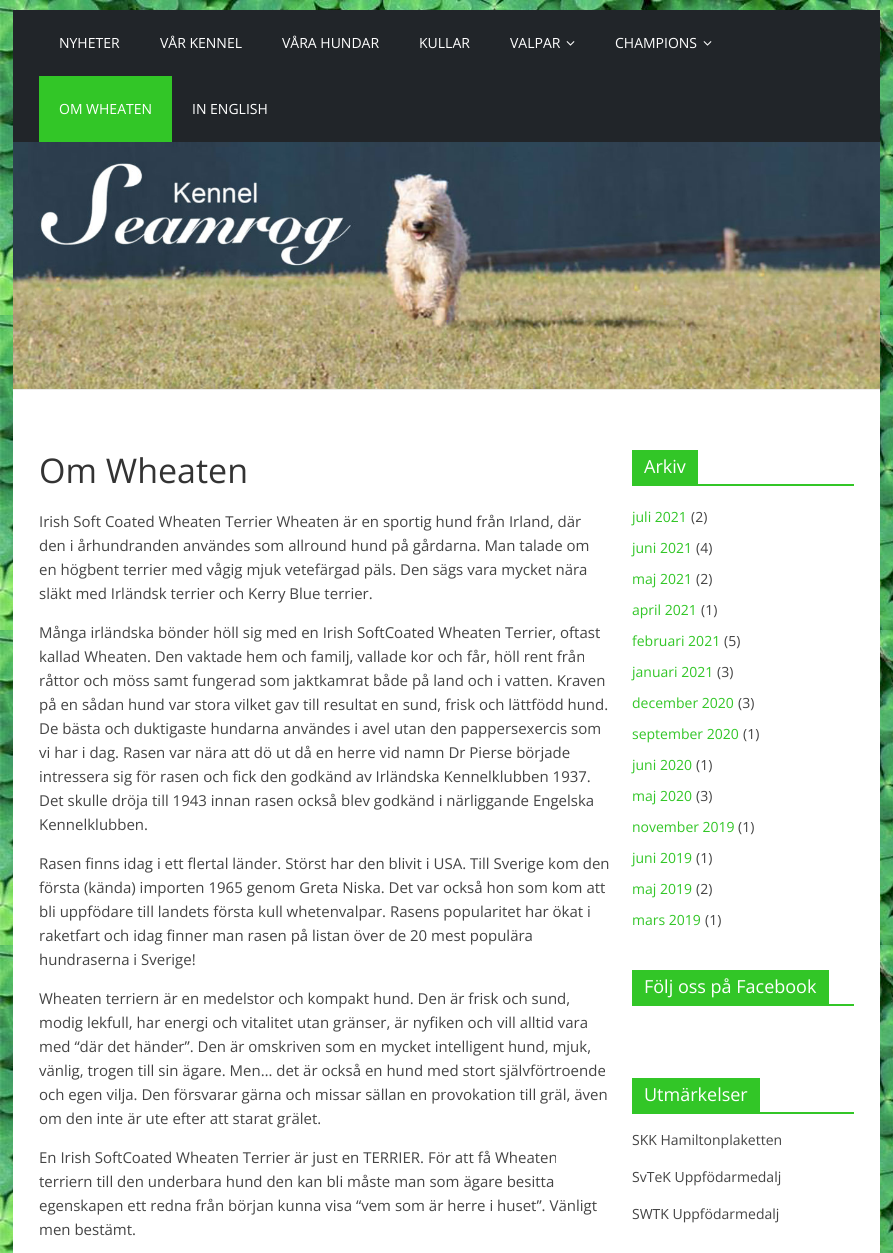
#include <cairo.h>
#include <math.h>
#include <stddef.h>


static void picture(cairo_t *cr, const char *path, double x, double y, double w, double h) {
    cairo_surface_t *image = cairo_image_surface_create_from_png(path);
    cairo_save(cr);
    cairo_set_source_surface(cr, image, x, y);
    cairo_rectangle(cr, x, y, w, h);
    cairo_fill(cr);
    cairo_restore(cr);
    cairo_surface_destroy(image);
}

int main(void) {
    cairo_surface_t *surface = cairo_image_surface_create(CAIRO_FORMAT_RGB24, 893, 1253);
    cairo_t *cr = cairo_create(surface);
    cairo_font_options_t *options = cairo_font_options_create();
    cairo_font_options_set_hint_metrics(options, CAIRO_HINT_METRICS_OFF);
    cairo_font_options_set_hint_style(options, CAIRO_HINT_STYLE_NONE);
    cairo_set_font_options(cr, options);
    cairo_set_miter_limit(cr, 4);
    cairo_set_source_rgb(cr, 1, 1, 1);
    cairo_paint(cr);
    picture(cr, "img1.png", 0, 0, 893, 1253);
    cairo_set_source_rgb(cr, 1, 1, 1);
    cairo_rectangle(cr, 13, 390, 867, 863);
    cairo_fill(cr);
    cairo_set_source_rgb(cr, 0.129, 0.145, 0.161);
    cairo_rectangle(cr, 13, 10, 867, 132);
    cairo_fill(cr);
    cairo_select_font_face(cr, "Open Sans", CAIRO_FONT_SLANT_NORMAL, CAIRO_FONT_WEIGHT_NORMAL);
    cairo_set_font_size(cr, 14);
    cairo_set_source_rgb(cr, 1, 1, 1);
    cairo_move_to(cr, 59, 48);
    cairo_show_text(cr, "NYHETER");
    cairo_move_to(cr, 160, 48);
    cairo_show_text(cr, "VÅR KENNEL");
    cairo_move_to(cr, 282, 48);
    cairo_show_text(cr, "VÅRA HUNDAR");
    cairo_move_to(cr, 419, 48);
    cairo_show_text(cr, "KULLAR");
    cairo_move_to(cr, 510, 48);
    cairo_show_text(cr, "VALPAR");
    picture(cr, "img2.png", 566, 41, 9, 5);
    cairo_move_to(cr, 615, 48);
    cairo_show_text(cr, "CHAMPIONS");
    picture(cr, "img2.png", 703, 41, 9, 5);
    cairo_set_source_rgb(cr, 0.196, 0.776, 0.153);
    cairo_rectangle(cr, 39, 76, 133, 66);
    cairo_fill(cr);
    cairo_set_source_rgb(cr, 1, 1, 1);
    cairo_move_to(cr, 59, 114);
    cairo_show_text(cr, "OM WHEATEN");
    cairo_move_to(cr, 192, 114);
    cairo_show_text(cr, "IN ENGLISH");
    picture(cr, "img3.png", 13, 142, 867, 247);
    cairo_set_source_rgb(cr, 0.918, 0.918, 0.918);
    cairo_rectangle(cr, 13, 389, 867, 1);
    cairo_fill(cr);
    cairo_set_font_size(cr, 34);
    cairo_set_source_rgb(cr, 0.2, 0.2, 0.2);
    cairo_move_to(cr, 39, 483);
    cairo_show_text(cr, "Om Wheaten");
    cairo_set_font_size(cr, 15);
    cairo_set_source_rgb(cr, 0.267, 0.267, 0.267);
    cairo_move_to(cr, 39, 527);
    cairo_show_text(cr, "Irish Soft Coated Wheaten Terrier Wheaten är en sportig hund från Irland, där");
    cairo_move_to(cr, 39, 551);
    cairo_show_text(cr, "den i århundranden användes som allround hund på gårdarna. Man talade om");
    cairo_move_to(cr, 39, 575);
    cairo_show_text(cr, "en högbent terrier med vågig mjuk vetefärgad päls. Den sägs vara mycket nära");
    cairo_move_to(cr, 39, 599);
    cairo_show_text(cr, "släkt med Irländsk terrier och Kerry Blue terrier.");
    cairo_move_to(cr, 39, 638);
    cairo_show_text(cr, "Många irländska bönder höll sig med en Irish SoftCoated Wheaten Terrier, oftast");
    cairo_move_to(cr, 39, 662);
    cairo_show_text(cr, "kallad Wheaten. Den vaktade hem och familj, vallade kor och får, höll rent från");
    cairo_move_to(cr, 39, 686);
    cairo_show_text(cr, "råttor och möss samt fungerad som jaktkamrat både på land och i vatten. Kraven");
    cairo_move_to(cr, 39, 710);
    cairo_show_text(cr, "på en sådan hund var stora vilket gav till resultat en sund, frisk och lättfödd hund.");
    cairo_move_to(cr, 39, 734);
    cairo_show_text(cr, "De bästa och duktigaste hundarna användes i avel utan den pappersexercis som");
    cairo_move_to(cr, 39, 758);
    cairo_show_text(cr, "vi har i dag. Rasen var nära att dö ut då en herre vid namn Dr Pierse började");
    cairo_move_to(cr, 39, 782);
    cairo_show_text(cr, "intressera sig för rasen och fick den godkänd av Irländska Kennelklubben 1937.");
    cairo_move_to(cr, 39, 806);
    cairo_show_text(cr, "Det skulle dröja till 1943 innan rasen också blev godkänd i närliggande Engelska");
    cairo_move_to(cr, 39, 830);
    cairo_show_text(cr, "Kennelklubben.");
    cairo_move_to(cr, 39, 869);
    cairo_show_text(cr, "Rasen finns idag i ett flertal länder. Störst har den blivit i USA. Till Sverige kom den");
    cairo_move_to(cr, 39, 893);
    cairo_show_text(cr, "första (kända) importen 1965 genom Greta Niska. Det var också hon som kom att");
    cairo_move_to(cr, 39, 917);
    cairo_show_text(cr, "bli uppfödare till landets första kull whetenvalpar. Rasens popularitet har ökat i");
    cairo_move_to(cr, 39, 941);
    cairo_show_text(cr, "raketfart och idag finner man rasen på listan över de 20 mest populära");
    cairo_move_to(cr, 39, 965);
    cairo_show_text(cr, "hundraserna i Sverige!");
    cairo_move_to(cr, 39, 1004);
    cairo_show_text(cr, "Wheaten terriern är en medelstor och kompakt hund. Den är frisk och sund,");
    cairo_move_to(cr, 39, 1028);
    cairo_show_text(cr, "modig lekfull, har energi och vitalitet utan gränser, är nyfiken och vill alltid vara");
    cairo_move_to(cr, 39, 1052);
    cairo_show_text(cr, "med “där det händer”. Den är omskriven som en mycket intelligent hund, mjuk,");
    cairo_move_to(cr, 39, 1076);
    cairo_show_text(cr, "vänlig, trogen till sin ägare. Men… det är också en hund med stort självförtroende");
    cairo_move_to(cr, 39, 1100);
    cairo_show_text(cr, "och egen vilja. Den försvarar gärna och missar sällan en provokation till gräl, även");
    cairo_move_to(cr, 39, 1124);
    cairo_show_text(cr, "om den inte är ute efter att starat grälet.");
    cairo_move_to(cr, 39, 1163);
    cairo_show_text(cr, "En Irish SoftCoated Wheaten Terrier är just en TERRIER. För att få Wheaten");
    cairo_move_to(cr, 39, 1187);
    cairo_show_text(cr, "terriern till den underbara hund den kan bli måste man som ägare besitta");
    cairo_move_to(cr, 39, 1211);
    cairo_show_text(cr, "egenskapen ett redna från början kunna visa “vem som är herre i huset”. Vänligt");
    cairo_move_to(cr, 39, 1235);
    cairo_show_text(cr, "men bestämt.");
    cairo_set_source_rgb(cr, 0.196, 0.776, 0.153);
    cairo_rectangle(cr, 632, 484, 222, 2);
    cairo_fill(cr);
    cairo_rectangle(cr, 632, 450, 66, 34);
    cairo_fill(cr);
    cairo_set_font_size(cr, 18);
    cairo_set_source_rgb(cr, 1, 1, 1);
    cairo_move_to(cr, 644, 473);
    cairo_show_text(cr, "Arkiv");
    cairo_set_font_size(cr, 14);
    cairo_set_source_rgb(cr, 0.196, 0.776, 0.153);
    cairo_move_to(cr, 632, 522);
    cairo_show_text(cr, "juli 2021");
    cairo_set_source_rgb(cr, 0.267, 0.267, 0.267);
    cairo_move_to(cr, 691, 522);
    cairo_show_text(cr, "(2)");
    cairo_set_source_rgb(cr, 0.196, 0.776, 0.153);
    cairo_move_to(cr, 632, 553);
    cairo_show_text(cr, "juni 2021");
    cairo_set_source_rgb(cr, 0.267, 0.267, 0.267);
    cairo_move_to(cr, 696, 553);
    cairo_show_text(cr, "(4)");
    cairo_set_source_rgb(cr, 0.196, 0.776, 0.153);
    cairo_move_to(cr, 632, 584);
    cairo_show_text(cr, "maj 2021");
    cairo_set_source_rgb(cr, 0.267, 0.267, 0.267);
    cairo_move_to(cr, 696, 584);
    cairo_show_text(cr, "(2)");
    cairo_set_source_rgb(cr, 0.196, 0.776, 0.153);
    cairo_move_to(cr, 632, 615);
    cairo_show_text(cr, "april 2021");
    cairo_set_source_rgb(cr, 0.267, 0.267, 0.267);
    cairo_move_to(cr, 701, 615);
    cairo_show_text(cr, "(1)");
    cairo_set_source_rgb(cr, 0.196, 0.776, 0.153);
    cairo_move_to(cr, 632, 646);
    cairo_show_text(cr, "februari 2021");
    cairo_set_source_rgb(cr, 0.267, 0.267, 0.267);
    cairo_move_to(cr, 724, 646);
    cairo_show_text(cr, "(5)");
    cairo_set_source_rgb(cr, 0.196, 0.776, 0.153);
    cairo_move_to(cr, 632, 677);
    cairo_show_text(cr, "januari 2021");
    cairo_set_source_rgb(cr, 0.267, 0.267, 0.267);
    cairo_move_to(cr, 717, 677);
    cairo_show_text(cr, "(3)");
    cairo_set_source_rgb(cr, 0.196, 0.776, 0.153);
    cairo_move_to(cr, 632, 708);
    cairo_show_text(cr, "december 2020");
    cairo_set_source_rgb(cr, 0.267, 0.267, 0.267);
    cairo_move_to(cr, 738, 708);
    cairo_show_text(cr, "(3)");
    cairo_set_source_rgb(cr, 0.196, 0.776, 0.153);
    cairo_move_to(cr, 632, 739);
    cairo_show_text(cr, "september 2020");
    cairo_set_source_rgb(cr, 0.267, 0.267, 0.267);
    cairo_move_to(cr, 743, 739);
    cairo_show_text(cr, "(1)");
    cairo_set_source_rgb(cr, 0.196, 0.776, 0.153);
    cairo_move_to(cr, 632, 770);
    cairo_show_text(cr, "juni 2020");
    cairo_set_source_rgb(cr, 0.267, 0.267, 0.267);
    cairo_move_to(cr, 696, 770);
    cairo_show_text(cr, "(1)");
    cairo_set_source_rgb(cr, 0.196, 0.776, 0.153);
    cairo_move_to(cr, 632, 801);
    cairo_show_text(cr, "maj 2020");
    cairo_set_source_rgb(cr, 0.267, 0.267, 0.267);
    cairo_move_to(cr, 696, 801);
    cairo_show_text(cr, "(3)");
    cairo_set_source_rgb(cr, 0.196, 0.776, 0.153);
    cairo_move_to(cr, 632, 832);
    cairo_show_text(cr, "november 2019");
    cairo_set_source_rgb(cr, 0.267, 0.267, 0.267);
    cairo_move_to(cr, 738, 832);
    cairo_show_text(cr, "(1)");
    cairo_set_source_rgb(cr, 0.196, 0.776, 0.153);
    cairo_move_to(cr, 632, 863);
    cairo_show_text(cr, "juni 2019");
    cairo_set_source_rgb(cr, 0.267, 0.267, 0.267);
    cairo_move_to(cr, 696, 863);
    cairo_show_text(cr, "(1)");
    cairo_set_source_rgb(cr, 0.196, 0.776, 0.153);
    cairo_move_to(cr, 632, 894);
    cairo_show_text(cr, "maj 2019");
    cairo_set_source_rgb(cr, 0.267, 0.267, 0.267);
    cairo_move_to(cr, 696, 894);
    cairo_show_text(cr, "(2)");
    cairo_set_source_rgb(cr, 0.196, 0.776, 0.153);
    cairo_move_to(cr, 632, 925);
    cairo_show_text(cr, "mars 2019");
    cairo_set_source_rgb(cr, 0.267, 0.267, 0.267);
    cairo_move_to(cr, 705, 925);
    cairo_show_text(cr, "(1)");
    cairo_set_source_rgb(cr, 0.196, 0.776, 0.153);
    cairo_rectangle(cr, 632, 1004, 222, 2);
    cairo_fill(cr);
    cairo_rectangle(cr, 632, 970, 197, 34);
    cairo_fill(cr);
    cairo_set_font_size(cr, 18);
    cairo_set_source_rgb(cr, 1, 1, 1);
    cairo_move_to(cr, 644, 993);
    cairo_show_text(cr, "Följ oss på Facebook");
    cairo_set_source_rgb(cr, 0.196, 0.776, 0.153);
    cairo_rectangle(cr, 632, 1112, 222, 2);
    cairo_fill(cr);
    cairo_rectangle(cr, 632, 1078, 128, 34);
    cairo_fill(cr);
    cairo_set_source_rgb(cr, 1, 1, 1);
    cairo_move_to(cr, 644, 1101);
    cairo_show_text(cr, "Utmärkelser");
    cairo_set_font_size(cr, 14);
    cairo_set_source_rgb(cr, 0.267, 0.267, 0.267);
    cairo_move_to(cr, 632, 1145);
    cairo_show_text(cr, "SKK Hamiltonplaketten");
    cairo_move_to(cr, 632, 1182);
    cairo_show_text(cr, "SvTeK Uppfödarmedalj");
    cairo_move_to(cr, 632, 1219);
    cairo_show_text(cr, "SWTK Uppfödarmedalj");
    cairo_surface_write_to_png(surface, "page.png");
    cairo_font_options_destroy(options);
    cairo_destroy(cr);
    cairo_surface_destroy(surface);
    return 0;
}
